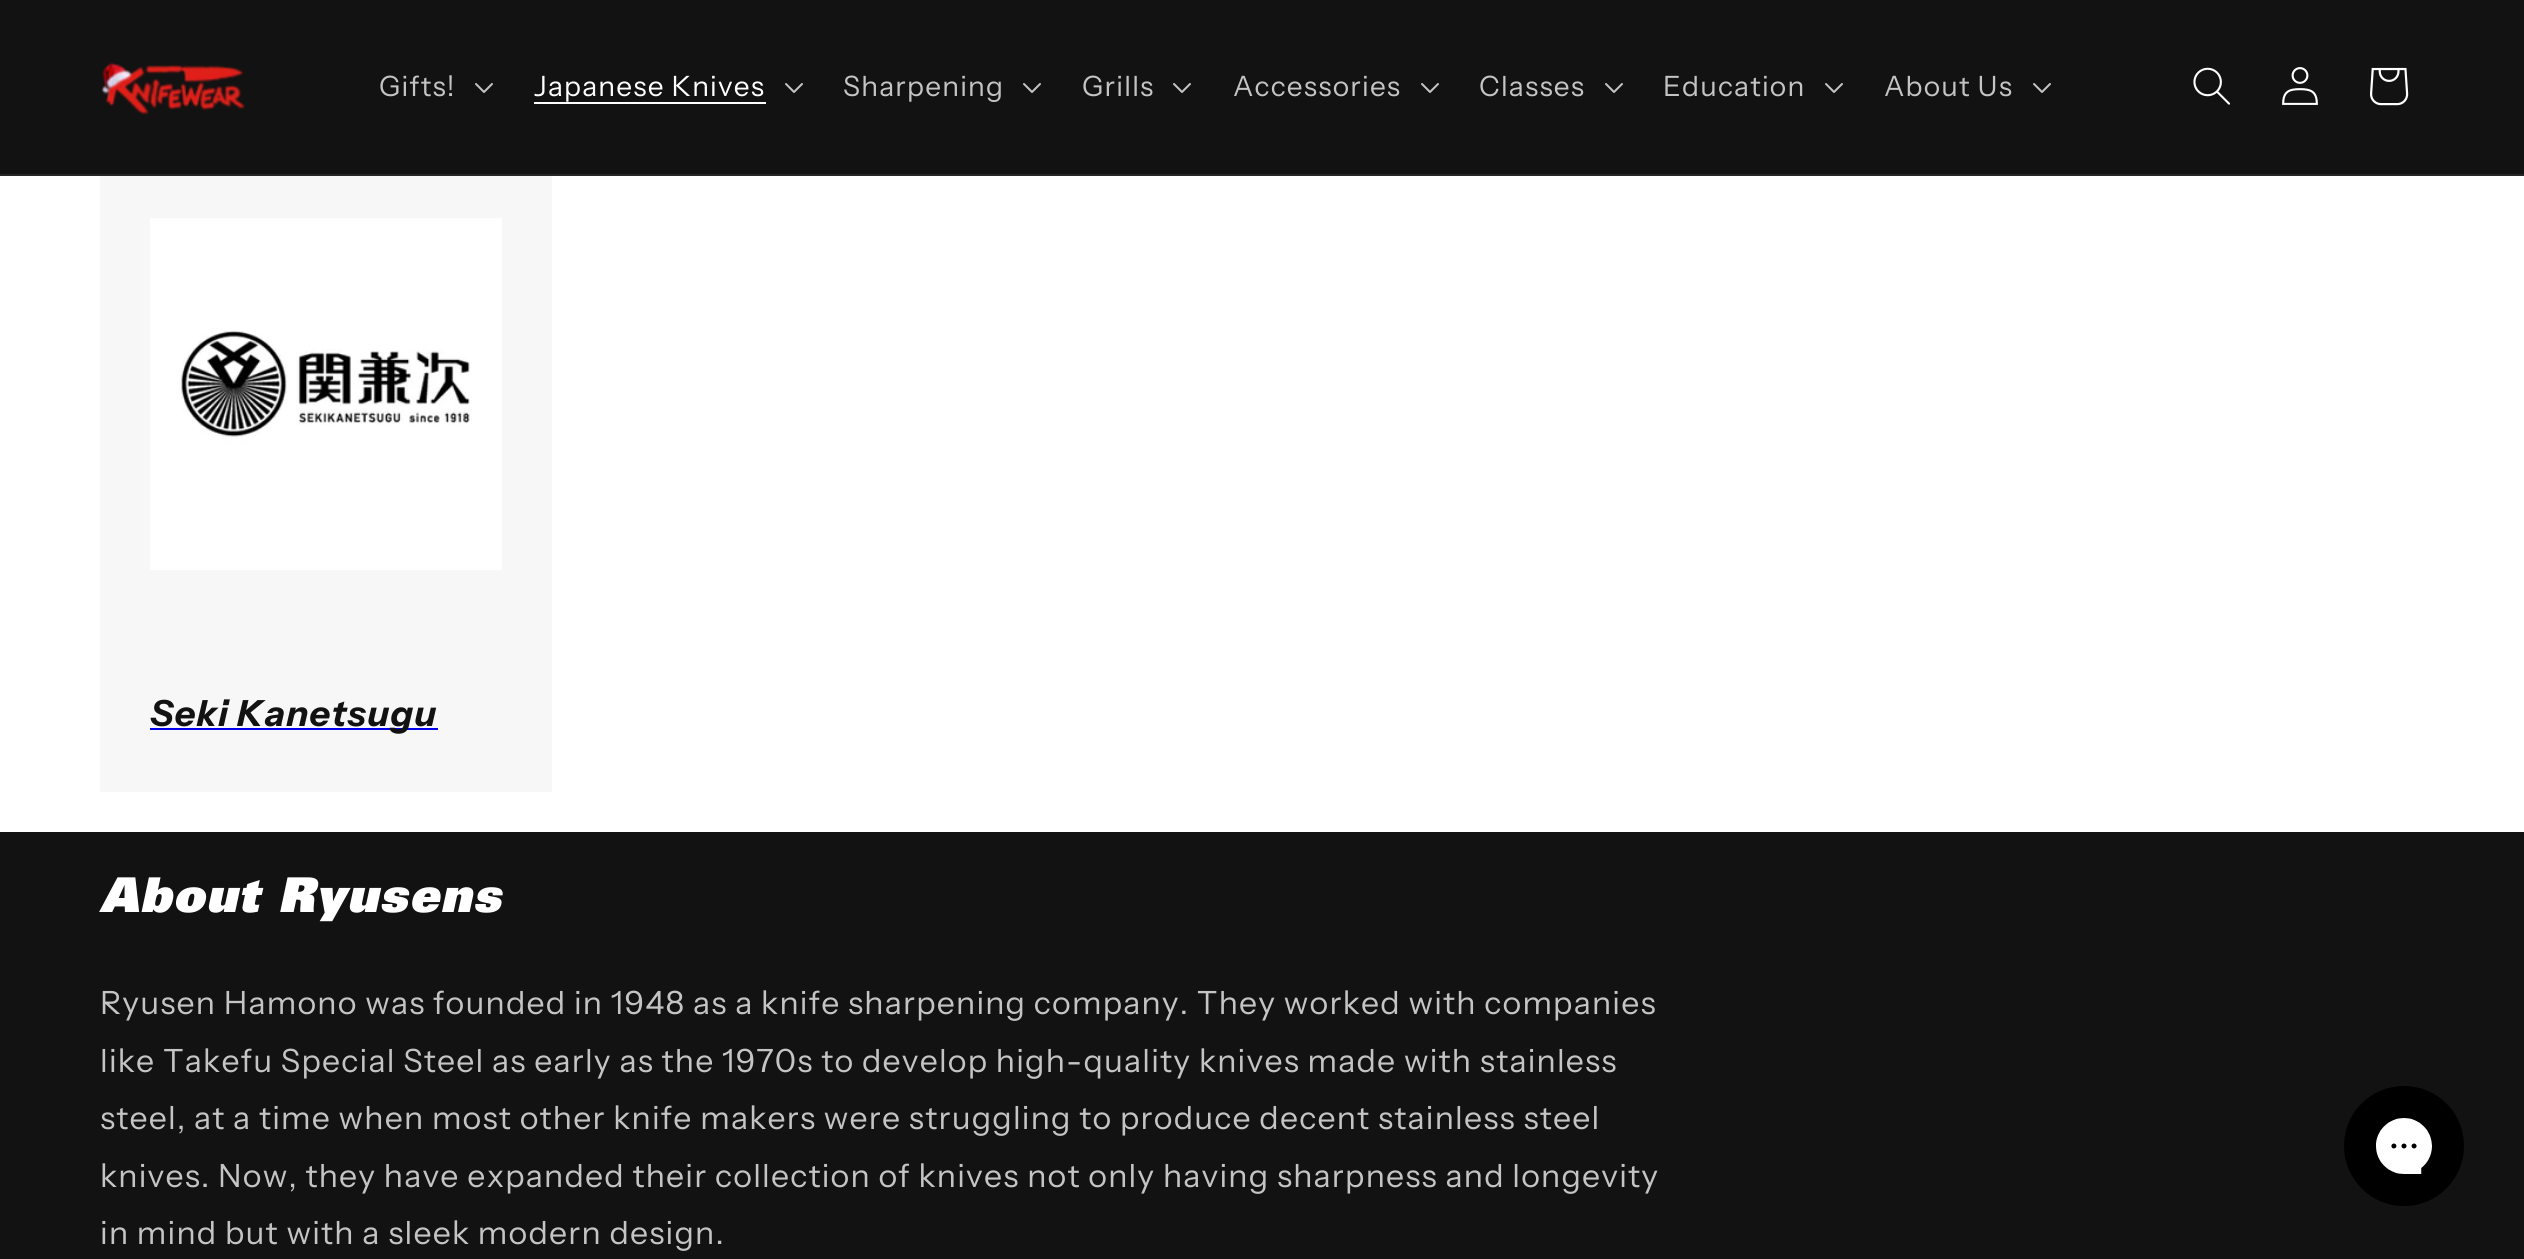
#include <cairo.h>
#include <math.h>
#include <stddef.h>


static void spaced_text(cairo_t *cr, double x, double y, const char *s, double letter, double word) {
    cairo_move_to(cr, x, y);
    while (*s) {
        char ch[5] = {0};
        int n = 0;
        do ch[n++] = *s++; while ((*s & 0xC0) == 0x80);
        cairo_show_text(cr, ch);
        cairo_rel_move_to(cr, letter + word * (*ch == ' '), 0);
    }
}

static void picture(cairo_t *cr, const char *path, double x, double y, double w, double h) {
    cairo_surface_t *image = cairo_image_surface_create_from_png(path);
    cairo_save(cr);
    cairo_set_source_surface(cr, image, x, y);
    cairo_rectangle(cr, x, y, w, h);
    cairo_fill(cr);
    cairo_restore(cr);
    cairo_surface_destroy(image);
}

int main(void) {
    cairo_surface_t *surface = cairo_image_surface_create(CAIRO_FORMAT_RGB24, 2524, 1259);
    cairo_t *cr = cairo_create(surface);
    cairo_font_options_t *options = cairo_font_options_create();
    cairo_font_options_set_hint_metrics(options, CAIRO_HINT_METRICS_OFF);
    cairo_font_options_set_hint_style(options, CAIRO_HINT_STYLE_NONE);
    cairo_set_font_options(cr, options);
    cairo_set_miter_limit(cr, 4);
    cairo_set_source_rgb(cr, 1, 1, 1);
    cairo_paint(cr);
    cairo_set_source_rgb(cr, 0.071, 0.071, 0.071);
    cairo_rectangle(cr, 0, 0, 2524, 174);
    cairo_fill(cr);
    cairo_set_source_rgb(cr, 0.145, 0.145, 0.145);
    cairo_rectangle(cr, 0, 174, 2524, 2);
    cairo_fill(cr);
    picture(cr, "img1.png", 101, 62, 144, 53);
    cairo_select_font_face(cr, "Instrument Sans", CAIRO_FONT_SLANT_NORMAL, CAIRO_FONT_WEIGHT_NORMAL);
    cairo_set_font_size(cr, 28);
    cairo_set_source_rgb(cr, 0.769, 0.769, 0.769);
    spaced_text(cr, 379, 96, "Gifts!", 1.2, 0);
    picture(cr, "img2.png", 475, 83, 18, 10);
    cairo_set_source_rgb(cr, 1, 1, 1);
    spaced_text(cr, 534, 96, "Japanese Knives", 1.2, 0);
    cairo_rectangle(cr, 534, 102, 232, 2);
    cairo_fill(cr);
    picture(cr, "img2.png", 785, 83, 18, 10);
    cairo_set_source_rgb(cr, 0.769, 0.769, 0.769);
    spaced_text(cr, 843, 96, "Sharpening", 1.2, 0);
    picture(cr, "img2.png", 1023, 83, 18, 10);
    spaced_text(cr, 1082, 96, "Grills", 1.2, 0);
    picture(cr, "img2.png", 1173, 83, 18, 10);
    spaced_text(cr, 1233, 96, "Accessories", 1.2, 0);
    picture(cr, "img2.png", 1421, 83, 18, 10);
    spaced_text(cr, 1479, 96, "Classes", 1.2, 0);
    picture(cr, "img2.png", 1605, 83, 18, 10);
    spaced_text(cr, 1663, 96, "Education", 1.2, 0);
    picture(cr, "img2.png", 1825, 83, 18, 10);
    spaced_text(cr, 1884, 96, "About Us", 1.2, 0);
    picture(cr, "img2.png", 2033, 83, 18, 10);
    picture(cr, "img3.png", 2193, 67, 37, 38);
    picture(cr, "img4.png", 2282, 67, 36, 38);
    picture(cr, "img5.png", 2370, 67, 39, 39);
    cairo_set_source_rgb(cr, 0.965, 0.965, 0.965);
    cairo_rectangle(cr, 100, 176, 452, 616);
    cairo_fill(cr);
    picture(cr, "img6.png", 150, 218, 352, 352);
    cairo_set_source_rgb(cr, 0, 0, 0.933);
    cairo_rectangle(cr, 150, 728, 288, 2);
    cairo_fill(cr);
    cairo_select_font_face(cr, "Instrument Sans", CAIRO_FONT_SLANT_ITALIC, CAIRO_FONT_WEIGHT_BOLD);
    cairo_set_font_size(cr, 36);
    cairo_set_source_rgb(cr, 0.071, 0.071, 0.071);
    spaced_text(cr, 150, 726, "Seki Kanetsugu", 1.2, 0);
    cairo_rectangle(cr, 0, 832, 2524, 427);
    cairo_fill(cr);
    cairo_select_font_face(cr, "Univers Black", CAIRO_FONT_SLANT_ITALIC, CAIRO_FONT_WEIGHT_NORMAL);
    cairo_set_font_size(cr, 48);
    cairo_set_source_rgb(cr, 1, 1, 1);
    spaced_text(cr, 100, 912, "About Ryusens", 1.2, 0);
    cairo_select_font_face(cr, "Instrument Sans", CAIRO_FONT_SLANT_NORMAL, CAIRO_FONT_WEIGHT_NORMAL);
    cairo_set_font_size(cr, 32);
    cairo_set_source_rgb(cr, 0.769, 0.769, 0.769);
    spaced_text(cr, 100, 1014, "Ryusen Hamono was founded in 1948 as a knife sharpening company. They worked with companies", 1.2, 0);
    spaced_text(cr, 100, 1072, "like Takefu Special Steel as early as the 1970s to develop high-quality knives made with stainless", 1.2, 0);
    spaced_text(cr, 100, 1129, "steel, at a time when most other knife makers were struggling to produce decent stainless steel", 1.2, 0);
    spaced_text(cr, 100, 1187, "knives. Now, they have expanded their collection of knives not only having sharpness and longevity", 1.2, 0);
    spaced_text(cr, 100, 1244, "in mind but with a sleek modern design.", 1.2, 0);
    picture(cr, "img7.png", 2344, 1086, 120, 120);
    cairo_surface_write_to_png(surface, "page.png");
    cairo_font_options_destroy(options);
    cairo_destroy(cr);
    cairo_surface_destroy(surface);
    return 0;
}
